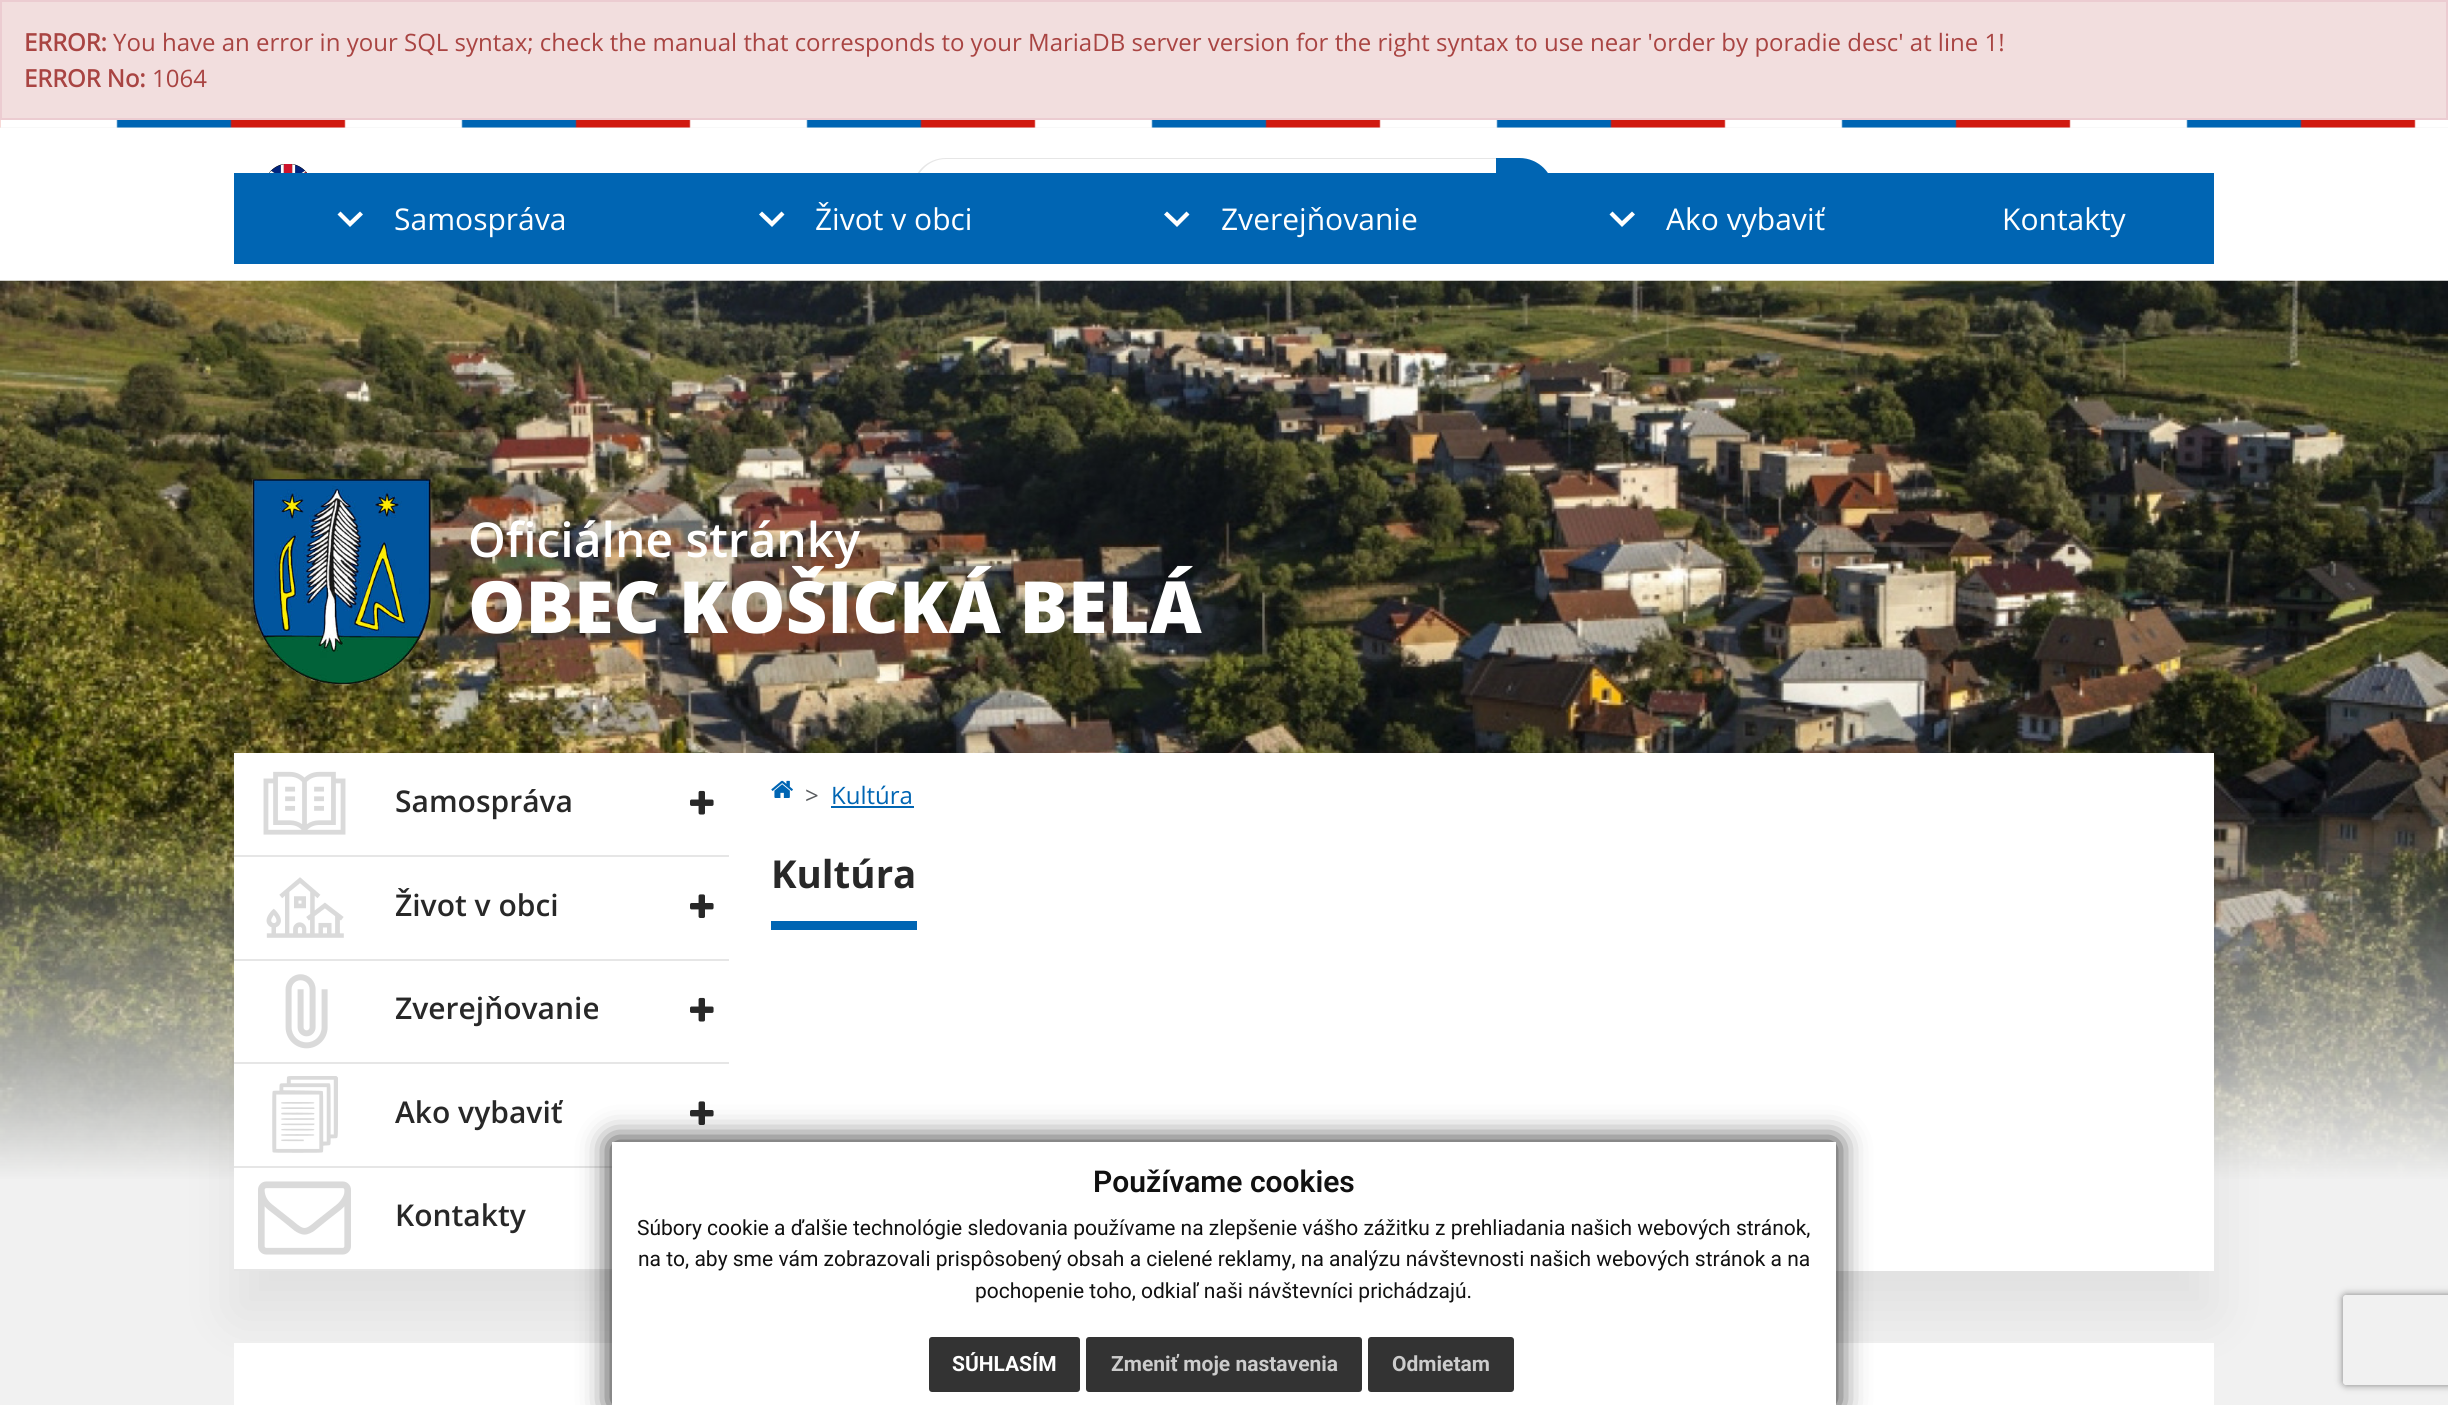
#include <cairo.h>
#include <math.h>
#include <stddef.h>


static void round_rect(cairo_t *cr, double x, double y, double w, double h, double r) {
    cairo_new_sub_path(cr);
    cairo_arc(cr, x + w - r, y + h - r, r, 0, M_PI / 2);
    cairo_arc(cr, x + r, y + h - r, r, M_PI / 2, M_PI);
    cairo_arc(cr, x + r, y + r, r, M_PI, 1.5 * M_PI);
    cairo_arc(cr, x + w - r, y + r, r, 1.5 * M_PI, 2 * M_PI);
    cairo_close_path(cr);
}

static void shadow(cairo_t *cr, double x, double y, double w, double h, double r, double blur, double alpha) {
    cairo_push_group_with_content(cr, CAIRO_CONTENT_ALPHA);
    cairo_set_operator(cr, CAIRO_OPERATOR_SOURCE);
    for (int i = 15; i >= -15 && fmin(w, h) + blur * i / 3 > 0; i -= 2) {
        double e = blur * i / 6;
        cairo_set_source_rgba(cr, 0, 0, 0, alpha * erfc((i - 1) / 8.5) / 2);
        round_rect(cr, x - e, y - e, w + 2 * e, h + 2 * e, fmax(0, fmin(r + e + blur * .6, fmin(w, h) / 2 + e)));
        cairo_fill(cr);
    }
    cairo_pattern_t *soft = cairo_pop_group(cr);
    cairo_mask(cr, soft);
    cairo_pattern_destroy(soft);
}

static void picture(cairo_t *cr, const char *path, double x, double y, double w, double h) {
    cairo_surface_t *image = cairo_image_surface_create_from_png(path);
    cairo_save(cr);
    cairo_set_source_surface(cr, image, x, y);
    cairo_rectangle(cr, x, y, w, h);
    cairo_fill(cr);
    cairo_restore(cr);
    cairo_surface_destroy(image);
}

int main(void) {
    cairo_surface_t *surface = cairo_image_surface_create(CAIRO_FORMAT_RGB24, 2448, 1405);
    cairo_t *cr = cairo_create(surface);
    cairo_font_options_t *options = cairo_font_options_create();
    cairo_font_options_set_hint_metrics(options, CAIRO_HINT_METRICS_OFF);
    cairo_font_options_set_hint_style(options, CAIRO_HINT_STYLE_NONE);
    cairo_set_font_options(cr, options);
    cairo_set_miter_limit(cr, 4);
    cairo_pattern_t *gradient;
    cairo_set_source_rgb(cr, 0.945, 0.945, 0.945);
    cairo_paint(cr);
    cairo_set_source_rgb(cr, 0.949, 0.871, 0.871);
    cairo_rectangle(cr, 1, 1, 2446, 118);
    cairo_fill_preserve(cr);
    cairo_set_source_rgb(cr, 0.922, 0.8, 0.82);
    cairo_stroke(cr);
    cairo_select_font_face(cr, "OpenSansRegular", CAIRO_FONT_SLANT_NORMAL, CAIRO_FONT_WEIGHT_BOLD);
    cairo_set_font_size(cr, 24);
    cairo_set_source_rgb(cr, 0.663, 0.267, 0.259);
    cairo_move_to(cr, 24, 51);
    cairo_show_text(cr, "ERROR:");
    cairo_select_font_face(cr, "OpenSansRegular", CAIRO_FONT_SLANT_NORMAL, CAIRO_FONT_WEIGHT_NORMAL);
    cairo_move_to(cr, 113, 51);
    cairo_show_text(cr, "You have an error in your SQL syntax; check the manual that corresponds to your MariaDB server version for the right syntax to use near 'order by poradie desc' at line 1!");
    cairo_select_font_face(cr, "OpenSansRegular", CAIRO_FONT_SLANT_NORMAL, CAIRO_FONT_WEIGHT_BOLD);
    cairo_move_to(cr, 24, 87);
    cairo_show_text(cr, "ERROR No:");
    cairo_select_font_face(cr, "OpenSansRegular", CAIRO_FONT_SLANT_NORMAL, CAIRO_FONT_WEIGHT_NORMAL);
    cairo_move_to(cr, 152, 87);
    cairo_show_text(cr, "1064");
    cairo_set_source_rgb(cr, 1, 1, 1);
    cairo_rectangle(cr, 0, 128, 2448, 153);
    cairo_fill(cr);
    picture(cr, "img1.png", 0, 120, 2448, 8);
    picture(cr, "img2.png", 269, 164, 38, 9);
    cairo_set_source_rgb(cr, 0.902, 0.902, 0.902);
    cairo_set_fill_rule(cr, CAIRO_FILL_RULE_EVEN_ODD);
    cairo_new_path(cr);
    cairo_move_to(cr, 946, 158);
    cairo_line_to(cr, 1496, 158);
    cairo_line_to(cr, 1496, 226);
    cairo_line_to(cr, 946, 226);
    cairo_curve_to(cr, 927, 226, 912, 211, 912, 192);
    cairo_curve_to(cr, 912, 173, 927, 158, 946, 158);
    cairo_close_path(cr);
    cairo_move_to(cr, 946, 159);
    cairo_line_to(cr, 1496, 159);
    cairo_line_to(cr, 1496, 225);
    cairo_line_to(cr, 946, 225);
    cairo_curve_to(cr, 928, 225, 914, 210, 914, 192);
    cairo_curve_to(cr, 914, 174, 928, 159, 946, 159);
    cairo_close_path(cr);
    cairo_fill(cr);
    cairo_set_source_rgb(cr, 0, 0.396, 0.702);
    cairo_new_path(cr);
    cairo_move_to(cr, 1496, 158);
    cairo_line_to(cr, 1519.5, 158);
    cairo_curve_to(cr, 1538.5, 158, 1554, 173.5, 1554, 192.5);
    cairo_curve_to(cr, 1554, 211.5, 1538.5, 227, 1519.5, 227);
    cairo_line_to(cr, 1496, 227);
    cairo_close_path(cr);
    cairo_fill(cr);
    cairo_rectangle(cr, 234, 173, 1980, 91);
    cairo_fill(cr);
    cairo_set_source_rgb(cr, 1, 1, 1);
    cairo_set_fill_rule(cr, CAIRO_FILL_RULE_WINDING);
    cairo_new_path(cr);
    cairo_move_to(cr, 360, 211.5);
    cairo_line_to(cr, 363, 214.5);
    cairo_line_to(cr, 350, 227);
    cairo_line_to(cr, 337.5, 214.5);
    cairo_line_to(cr, 340.5, 211.5);
    cairo_line_to(cr, 350, 221);
    cairo_close_path(cr);
    cairo_fill(cr);
    cairo_set_font_size(cr, 30);
    cairo_move_to(cr, 394, 230);
    cairo_show_text(cr, "Samospráva");
    cairo_new_path(cr);
    cairo_move_to(cr, 781.5, 211.5);
    cairo_line_to(cr, 784.5, 214.5);
    cairo_line_to(cr, 772, 227);
    cairo_line_to(cr, 759, 214.5);
    cairo_line_to(cr, 762, 211.5);
    cairo_line_to(cr, 772, 221);
    cairo_close_path(cr);
    cairo_fill(cr);
    cairo_move_to(cr, 815, 230);
    cairo_show_text(cr, "Život v obci");
    cairo_new_path(cr);
    cairo_move_to(cr, 1186.5, 211.5);
    cairo_line_to(cr, 1189.5, 214.5);
    cairo_line_to(cr, 1177, 227);
    cairo_line_to(cr, 1164, 214.5);
    cairo_line_to(cr, 1167, 211.5);
    cairo_line_to(cr, 1177, 221);
    cairo_close_path(cr);
    cairo_fill(cr);
    cairo_move_to(cr, 1221, 230);
    cairo_show_text(cr, "Zverejňovanie");
    cairo_new_path(cr);
    cairo_move_to(cr, 1632, 211.5);
    cairo_line_to(cr, 1635, 214.5);
    cairo_line_to(cr, 1622, 227);
    cairo_line_to(cr, 1609.5, 214.5);
    cairo_line_to(cr, 1612.5, 211.5);
    cairo_line_to(cr, 1622, 221);
    cairo_close_path(cr);
    cairo_fill(cr);
    cairo_move_to(cr, 1666, 230);
    cairo_show_text(cr, "Ako vybaviť");
    cairo_move_to(cr, 2002, 230);
    cairo_show_text(cr, "Kontakty");
    picture(cr, "img3.png", 0, 280, 2448, 899);
    picture(cr, "img4.png", 252, 479, 180, 206);
    cairo_select_font_face(cr, "Open Sans SemiBold", CAIRO_FONT_SLANT_NORMAL, CAIRO_FONT_WEIGHT_NORMAL);
    cairo_set_font_size(cr, 48);
    cairo_move_to(cr, 468, 557);
    cairo_show_text(cr, "Oficiálne stránky");
    cairo_select_font_face(cr, "Open Sans ExtraBold", CAIRO_FONT_SLANT_NORMAL, CAIRO_FONT_WEIGHT_NORMAL);
    cairo_set_font_size(cr, 72);
    cairo_move_to(cr, 468, 633);
    cairo_show_text(cr, "OBEC KOŠICKÁ BELÁ");
    gradient = cairo_pattern_create_linear(1224, 805, 1224, 1181);
    cairo_pattern_add_color_stop_rgba(gradient, 0, 0.945, 0.945, 0.945, 0);
    cairo_pattern_add_color_stop_rgba(gradient, 1, 0.945, 0.945, 0.945, 1);
    cairo_set_source(cr, gradient);
    cairo_pattern_destroy(gradient);
    cairo_rectangle(cr, 0, 813, 2448, 366);
    cairo_fill(cr);
    cairo_set_source_rgb(cr, 0, 0, 0);
    shadow(cr, 234, 798, 1980, 518, 0, 30, 0.07);
    cairo_set_source_rgb(cr, 1, 1, 1);
    cairo_rectangle(cr, 234, 753, 1980, 518);
    cairo_fill(cr);
    cairo_set_source_rgb(cr, 0.902, 0.902, 0.902);
    cairo_rectangle(cr, 234, 855, 495, 2);
    cairo_fill(cr);
    picture(cr, "img5.png", 263, 771, 83, 64);
    cairo_select_font_face(cr, "Open Sans SemiBold", CAIRO_FONT_SLANT_NORMAL, CAIRO_FONT_WEIGHT_NORMAL);
    cairo_set_font_size(cr, 30);
    cairo_set_source_rgb(cr, 0.157, 0.157, 0.157);
    cairo_move_to(cr, 395, 812);
    cairo_show_text(cr, "Samospráva");
    picture(cr, "img6.png", 690, 790, 24, 25);
    cairo_set_source_rgb(cr, 0.902, 0.902, 0.902);
    cairo_rectangle(cr, 234, 959, 495, 2);
    cairo_fill(cr);
    picture(cr, "img7.png", 266, 877, 78, 61);
    cairo_set_source_rgb(cr, 0.157, 0.157, 0.157);
    cairo_move_to(cr, 395, 916);
    cairo_show_text(cr, "Život v obci");
    picture(cr, "img8.png", 690, 894, 24, 24);
    cairo_set_source_rgb(cr, 0.902, 0.902, 0.902);
    cairo_rectangle(cr, 234, 1062, 495, 2);
    cairo_fill(cr);
    picture(cr, "img9.png", 285, 974, 43, 75);
    cairo_set_source_rgb(cr, 0.157, 0.157, 0.157);
    cairo_move_to(cr, 395, 1019);
    cairo_show_text(cr, "Zverejňovanie");
    picture(cr, "img6.png", 690, 997, 24, 25);
    cairo_set_source_rgb(cr, 0.902, 0.902, 0.902);
    cairo_rectangle(cr, 234, 1166, 378, 2);
    cairo_fill(cr);
    picture(cr, "img10.png", 272, 1076, 66, 77);
    cairo_set_source_rgb(cr, 0.157, 0.157, 0.157);
    cairo_move_to(cr, 395, 1123);
    cairo_show_text(cr, "Ako vybaviť");
    picture(cr, "img8.png", 690, 1101, 24, 24);
    cairo_set_source_rgb(cr, 0.902, 0.902, 0.902);
    cairo_rectangle(cr, 234, 1269, 378, 2);
    cairo_fill(cr);
    picture(cr, "img11.png", 258, 1181, 93, 74);
    cairo_set_source_rgb(cr, 0.157, 0.157, 0.157);
    cairo_move_to(cr, 395, 1226);
    cairo_show_text(cr, "Kontakty");
    picture(cr, "img12.png", 771, 780, 22, 18);
    cairo_select_font_face(cr, "OpenSansRegular", CAIRO_FONT_SLANT_NORMAL, CAIRO_FONT_WEIGHT_NORMAL);
    cairo_set_font_size(cr, 24);
    cairo_set_source_rgb(cr, 0.349, 0.361, 0.373);
    cairo_move_to(cr, 805, 804);
    cairo_show_text(cr, ">");
    cairo_set_source_rgb(cr, 0, 0.396, 0.702);
    cairo_move_to(cr, 831, 804);
    cairo_show_text(cr, "Kultúra");
    cairo_rectangle(cr, 831, 806, 83, 2);
    cairo_fill(cr);
    cairo_rectangle(cr, 771, 921, 146, 9);
    cairo_fill(cr);
    cairo_select_font_face(cr, "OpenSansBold", CAIRO_FONT_SLANT_NORMAL, CAIRO_FONT_WEIGHT_BOLD);
    cairo_set_font_size(cr, 38.5);
    cairo_set_source_rgb(cr, 0.157, 0.157, 0.157);
    cairo_move_to(cr, 771, 888);
    cairo_show_text(cr, "Kultúra");
    cairo_set_source_rgb(cr, 1, 1, 1);
    cairo_rectangle(cr, 234, 1343, 1980, 62);
    cairo_fill(cr);
    cairo_set_source_rgb(cr, 0.067, 0.067, 0.067);
    shadow(cr, 612, 1142, 1224, 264, 0, 15, 1);
    cairo_set_source_rgb(cr, 1, 1, 1);
    cairo_rectangle(cr, 612, 1142, 1224, 263);
    cairo_fill(cr);
    cairo_select_font_face(cr, "Roboto SemiBold", CAIRO_FONT_SLANT_NORMAL, CAIRO_FONT_WEIGHT_NORMAL);
    cairo_set_font_size(cr, 30);
    cairo_set_source_rgb(cr, 0.067, 0.067, 0.067);
    cairo_move_to(cr, 1093, 1192);
    cairo_show_text(cr, "Používame cookies");
    cairo_select_font_face(cr, "Roboto", CAIRO_FONT_SLANT_NORMAL, CAIRO_FONT_WEIGHT_NORMAL);
    cairo_set_font_size(cr, 21);
    cairo_move_to(cr, 637, 1235);
    cairo_show_text(cr, "Súbory cookie a ďalšie technológie sledovania používame na zlepšenie vášho zážitku z prehliadania našich webových stránok,");
    cairo_move_to(cr, 638, 1266);
    cairo_show_text(cr, "na to, aby sme vám zobrazovali prispôsobený obsah a cielené reklamy, na analýzu návštevnosti našich webových stránok a na");
    cairo_move_to(cr, 975, 1298);
    cairo_show_text(cr, "pochopenie toho, odkiaľ naši návštevníci prichádzajú.");
    cairo_set_source_rgb(cr, 0.2, 0.2, 0.2);
    round_rect(cr, 929, 1337, 151, 55, 3);
    cairo_fill(cr);
    cairo_select_font_face(cr, "Roboto", CAIRO_FONT_SLANT_NORMAL, CAIRO_FONT_WEIGHT_BOLD);
    cairo_set_source_rgb(cr, 1, 1, 1);
    cairo_move_to(cr, 952, 1371);
    cairo_show_text(cr, "SÚHLASÍM");
    cairo_set_source_rgb(cr, 0.2, 0.2, 0.2);
    round_rect(cr, 1086, 1337, 276, 55, 3);
    cairo_fill(cr);
    cairo_set_source_rgb(cr, 0.8, 0.8, 0.8);
    cairo_move_to(cr, 1111, 1371);
    cairo_show_text(cr, "Zmeniť moje nastavenia");
    cairo_set_source_rgb(cr, 0.2, 0.2, 0.2);
    round_rect(cr, 1368, 1337, 146, 55, 3);
    cairo_fill(cr);
    cairo_set_source_rgb(cr, 0.8, 0.8, 0.8);
    cairo_move_to(cr, 1392, 1371);
    cairo_show_text(cr, "Odmietam");
    cairo_save(cr);
    cairo_set_fill_rule(cr, CAIRO_FILL_RULE_EVEN_ODD);
    cairo_new_path(cr);
    cairo_move_to(cr, 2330, 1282);
    cairo_line_to(cr, 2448, 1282);
    cairo_line_to(cr, 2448, 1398);
    cairo_line_to(cr, 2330, 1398);
    cairo_close_path(cr);
    cairo_move_to(cr, 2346, 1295);
    cairo_line_to(cr, 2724, 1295);
    cairo_curve_to(cr, 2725.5, 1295, 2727, 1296.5, 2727, 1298);
    cairo_line_to(cr, 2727, 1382);
    cairo_curve_to(cr, 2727, 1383.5, 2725.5, 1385, 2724, 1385);
    cairo_line_to(cr, 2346, 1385);
    cairo_curve_to(cr, 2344.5, 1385, 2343, 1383.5, 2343, 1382);
    cairo_line_to(cr, 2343, 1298);
    cairo_curve_to(cr, 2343, 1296.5, 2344.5, 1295, 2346, 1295);
    cairo_close_path(cr);
    cairo_clip(cr);
    cairo_set_source_rgb(cr, 0.502, 0.502, 0.502);
    shadow(cr, 2343, 1295, 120, 90, 3, 4, 1);
    cairo_restore(cr);
    cairo_surface_write_to_png(surface, "page.png");
    cairo_font_options_destroy(options);
    cairo_destroy(cr);
    cairo_surface_destroy(surface);
    return 0;
}
